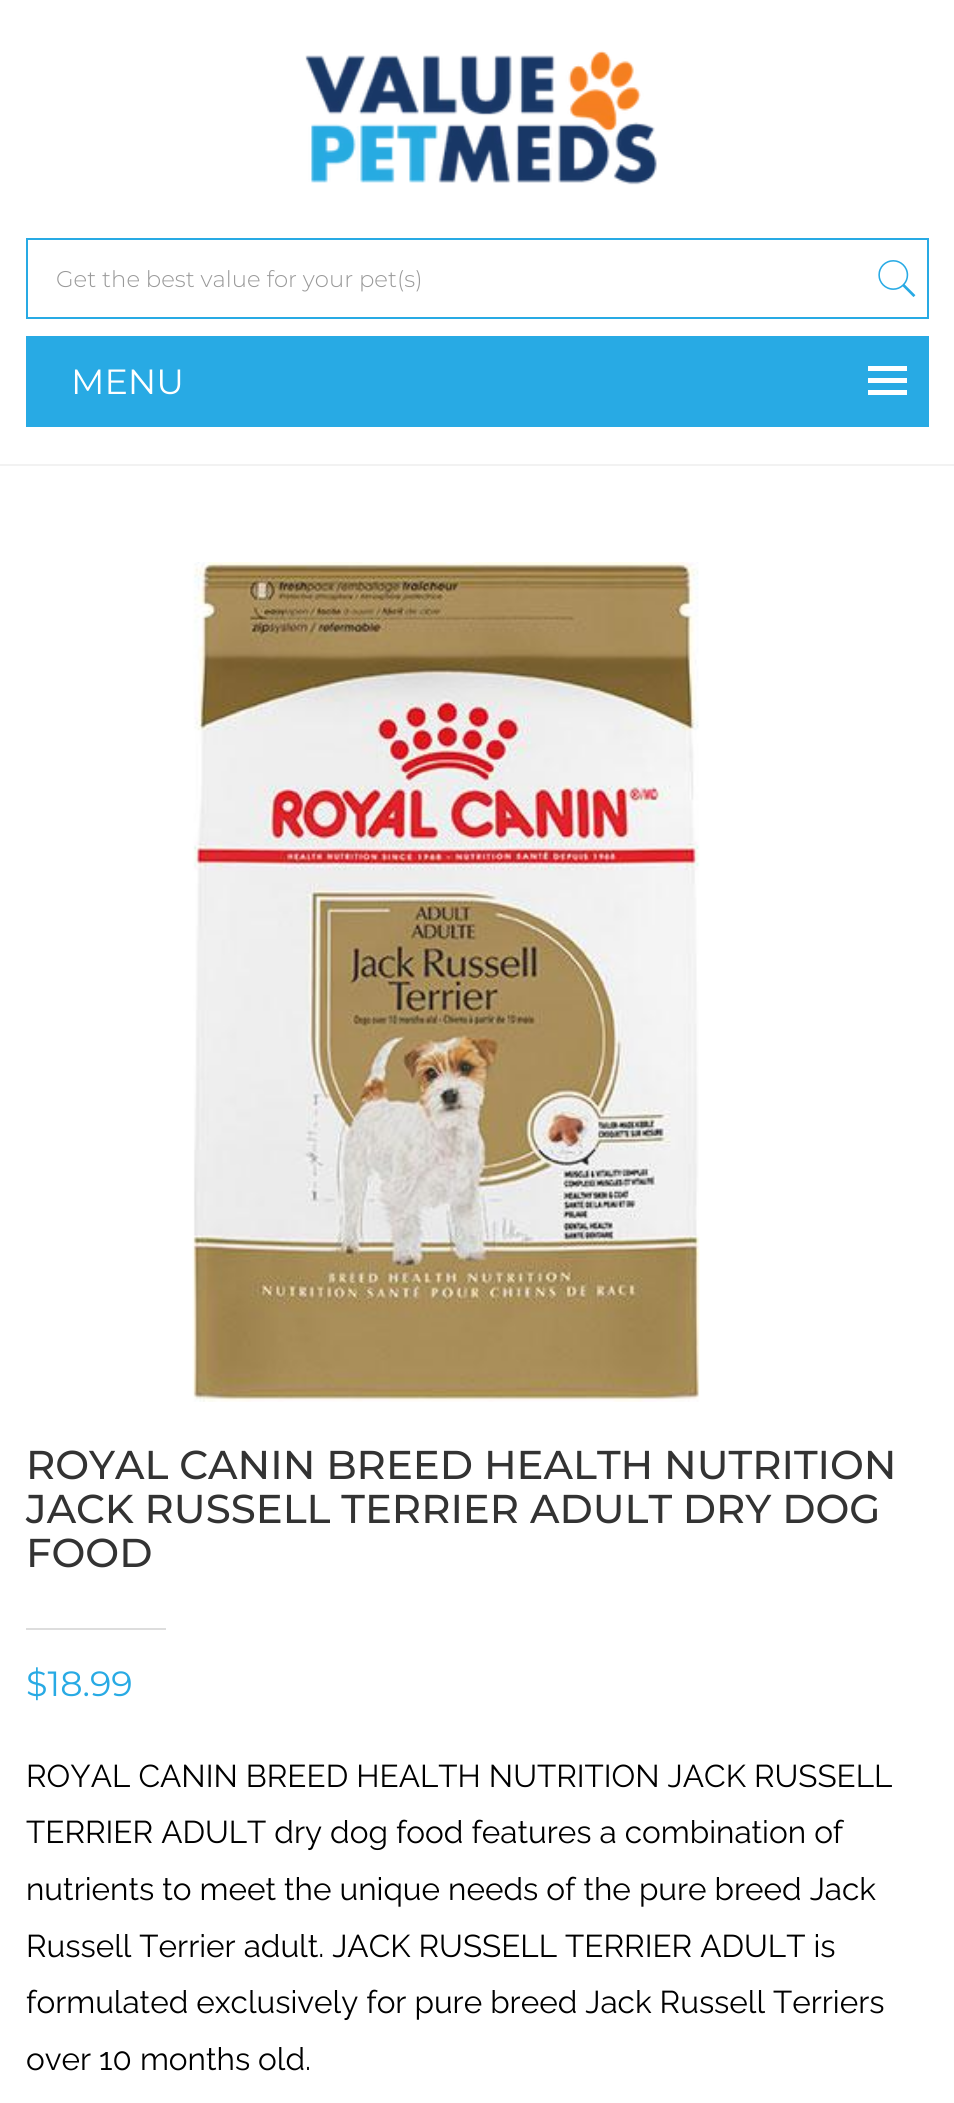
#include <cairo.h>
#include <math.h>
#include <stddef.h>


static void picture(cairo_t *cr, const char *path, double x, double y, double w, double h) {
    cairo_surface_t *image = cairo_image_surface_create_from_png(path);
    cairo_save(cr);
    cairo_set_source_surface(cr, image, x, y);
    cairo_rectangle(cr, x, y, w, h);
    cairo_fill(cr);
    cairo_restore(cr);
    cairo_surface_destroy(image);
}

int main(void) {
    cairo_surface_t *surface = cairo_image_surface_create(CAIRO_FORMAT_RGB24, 954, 2103);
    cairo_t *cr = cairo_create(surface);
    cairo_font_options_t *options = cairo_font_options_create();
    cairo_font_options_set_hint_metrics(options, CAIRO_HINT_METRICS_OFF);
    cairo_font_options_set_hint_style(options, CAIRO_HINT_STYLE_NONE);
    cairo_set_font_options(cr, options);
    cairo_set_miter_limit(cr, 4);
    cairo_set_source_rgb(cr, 1, 1, 1);
    cairo_paint(cr);
    cairo_set_source_rgb(cr, 0.949, 0.949, 0.949);
    cairo_rectangle(cr, 0, 464, 954, 2);
    cairo_fill(cr);
    picture(cr, "img1.png", 305, 50, 352, 135);
    cairo_rectangle(cr, 27, 239, 901, 79);
    cairo_set_source_rgb(cr, 0.157, 0.667, 0.894);
    cairo_stroke(cr);
    cairo_select_font_face(cr, "Montserrat Light", CAIRO_FONT_SLANT_NORMAL, CAIRO_FONT_WEIGHT_NORMAL);
    cairo_set_font_size(cr, 22.75);
    cairo_set_source_rgb(cr, 0.6, 0.6, 0.6);
    cairo_move_to(cr, 56, 287);
    cairo_show_text(cr, "Get the best value for your pet(s)");
    picture(cr, "img2.png", 878, 260, 38, 37);
    cairo_set_source_rgb(cr, 0.157, 0.667, 0.894);
    cairo_rectangle(cr, 26, 336, 903, 91);
    cairo_fill(cr);
    cairo_select_font_face(cr, "Montserrat", CAIRO_FONT_SLANT_NORMAL, CAIRO_FONT_WEIGHT_NORMAL);
    cairo_set_font_size(cr, 35);
    cairo_set_source_rgb(cr, 1, 1, 1);
    cairo_move_to(cr, 71, 394);
    cairo_show_text(cr, "MENU");
    cairo_rectangle(cr, 868, 366, 39, 5);
    cairo_fill(cr);
    cairo_rectangle(cr, 868, 378, 39, 5);
    cairo_fill(cr);
    cairo_rectangle(cr, 868, 390, 39, 5);
    cairo_fill(cr);
    picture(cr, "img3.png", 192, 562, 508, 840);
    cairo_select_font_face(cr, "Montserrat Medium", CAIRO_FONT_SLANT_NORMAL, CAIRO_FONT_WEIGHT_NORMAL);
    cairo_set_font_size(cr, 40.25);
    cairo_set_source_rgb(cr, 0.2, 0.2, 0.2);
    cairo_move_to(cr, 26, 1479);
    cairo_show_text(cr, "ROYAL CANIN BREED HEALTH NUTRITION");
    cairo_move_to(cr, 26, 1523);
    cairo_show_text(cr, "JACK RUSSELL TERRIER ADULT DRY DOG");
    cairo_move_to(cr, 26, 1567);
    cairo_show_text(cr, "FOOD");
    cairo_set_source_rgb(cr, 0.867, 0.867, 0.867);
    cairo_rectangle(cr, 26, 1628, 140, 2);
    cairo_fill(cr);
    cairo_select_font_face(cr, "Montserrat", CAIRO_FONT_SLANT_NORMAL, CAIRO_FONT_WEIGHT_NORMAL);
    cairo_set_font_size(cr, 35);
    cairo_set_source_rgb(cr, 0.157, 0.667, 0.894);
    cairo_move_to(cr, 26, 1696);
    cairo_show_text(cr, "$18.99");
    cairo_select_font_face(cr, "Raleway", CAIRO_FONT_SLANT_NORMAL, CAIRO_FONT_WEIGHT_NORMAL);
    cairo_set_font_size(cr, 31.5);
    cairo_set_source_rgb(cr, 0, 0, 0);
    cairo_move_to(cr, 26, 1787);
    cairo_show_text(cr, "ROYAL CANIN BREED HEALTH NUTRITION JACK RUSSELL");
    cairo_move_to(cr, 26, 1843);
    cairo_show_text(cr, "TERRIER ADULT dry dog food features a combination of");
    cairo_move_to(cr, 26, 1900);
    cairo_show_text(cr, "nutrients to meet the unique needs of the pure breed Jack");
    cairo_move_to(cr, 26, 1957);
    cairo_show_text(cr, "Russell Terrier adult. JACK RUSSELL TERRIER ADULT is");
    cairo_move_to(cr, 26, 2013);
    cairo_show_text(cr, "formulated exclusively for pure breed Jack Russell Terriers");
    cairo_move_to(cr, 26, 2070);
    cairo_show_text(cr, "over 10 months old.");
    cairo_surface_write_to_png(surface, "page.png");
    cairo_font_options_destroy(options);
    cairo_destroy(cr);
    cairo_surface_destroy(surface);
    return 0;
}
